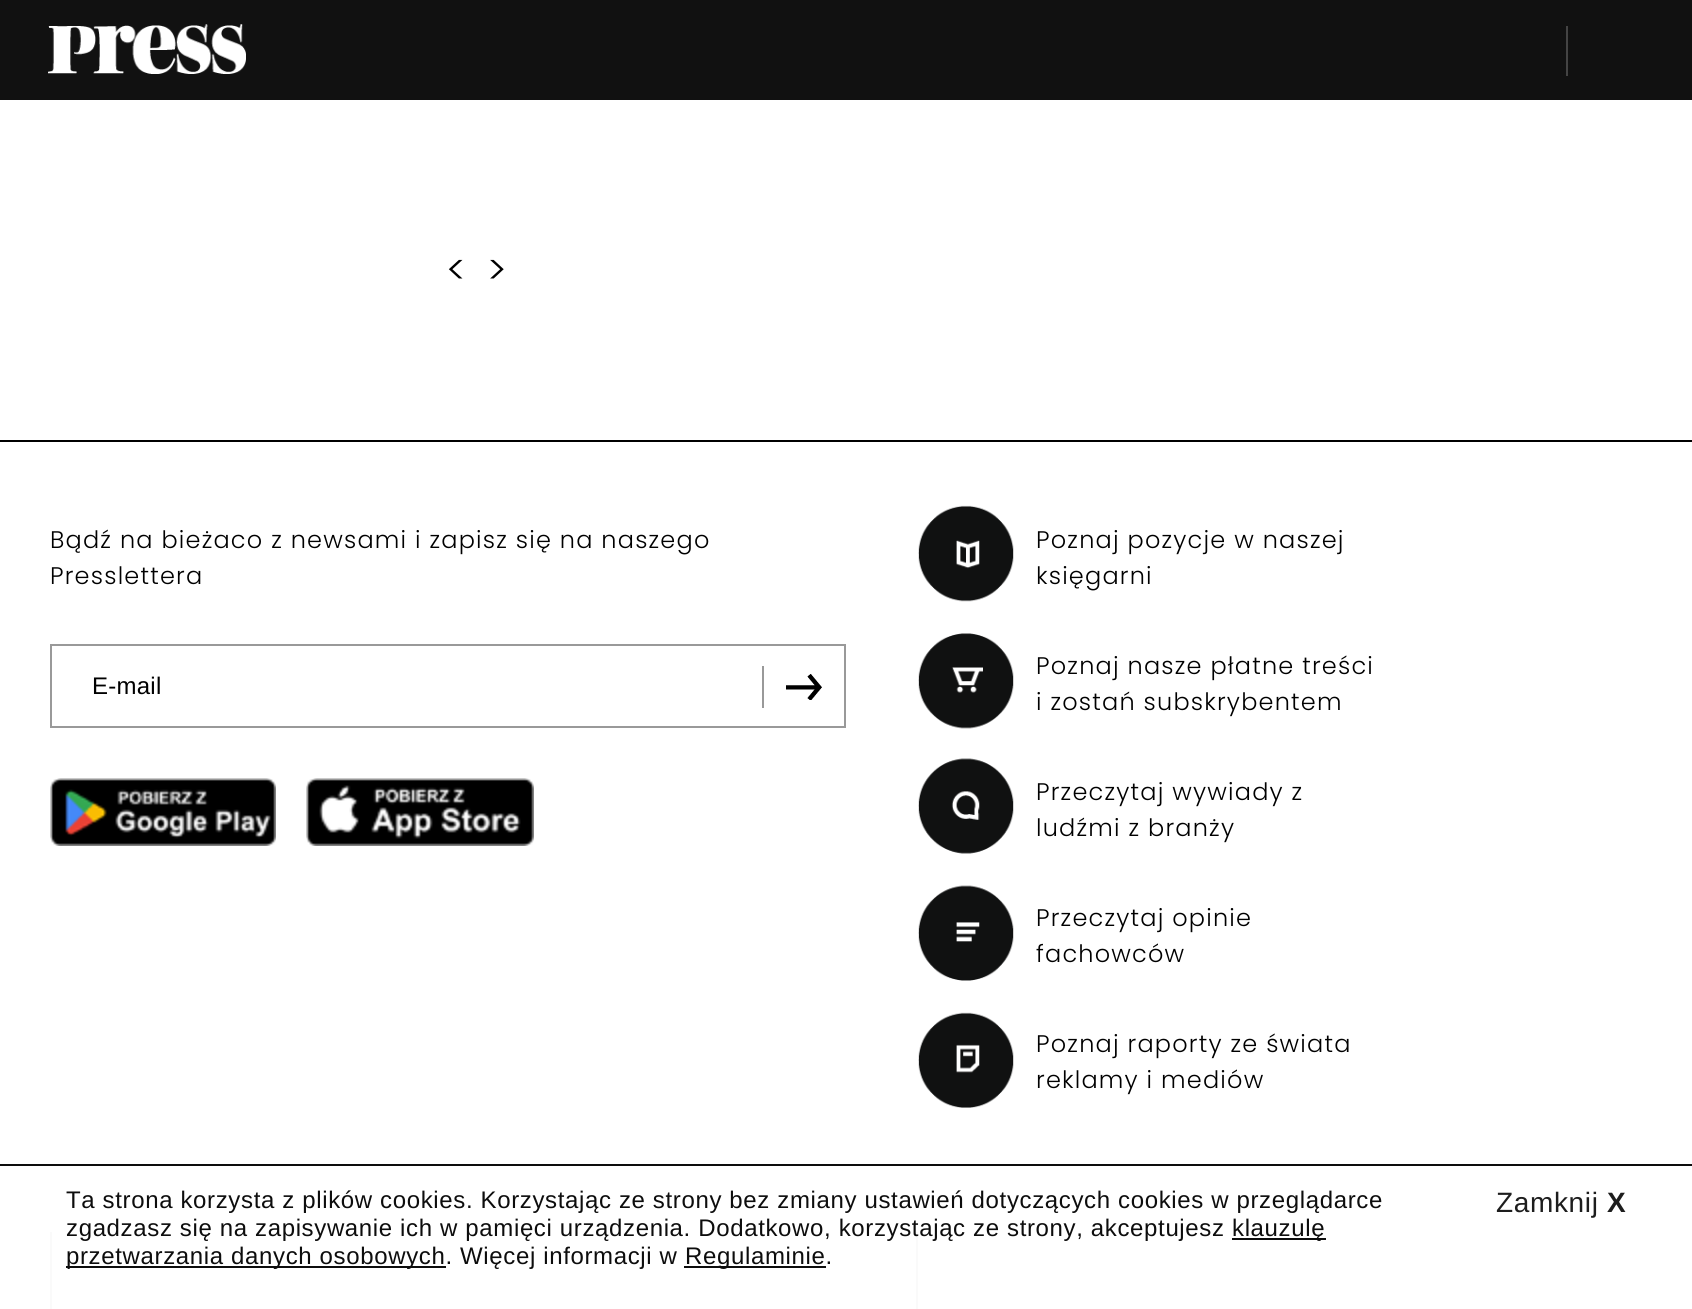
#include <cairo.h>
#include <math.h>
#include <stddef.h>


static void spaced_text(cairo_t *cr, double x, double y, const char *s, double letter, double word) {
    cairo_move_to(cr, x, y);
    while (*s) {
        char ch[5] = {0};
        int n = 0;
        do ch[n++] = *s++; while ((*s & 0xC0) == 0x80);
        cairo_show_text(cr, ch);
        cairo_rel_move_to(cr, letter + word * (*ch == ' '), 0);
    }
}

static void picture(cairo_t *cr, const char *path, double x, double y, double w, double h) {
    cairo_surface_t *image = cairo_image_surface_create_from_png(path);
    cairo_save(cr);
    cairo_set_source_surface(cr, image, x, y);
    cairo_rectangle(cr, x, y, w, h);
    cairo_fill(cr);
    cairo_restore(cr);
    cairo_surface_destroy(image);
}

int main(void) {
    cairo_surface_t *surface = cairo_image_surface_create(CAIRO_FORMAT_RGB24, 1692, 1309);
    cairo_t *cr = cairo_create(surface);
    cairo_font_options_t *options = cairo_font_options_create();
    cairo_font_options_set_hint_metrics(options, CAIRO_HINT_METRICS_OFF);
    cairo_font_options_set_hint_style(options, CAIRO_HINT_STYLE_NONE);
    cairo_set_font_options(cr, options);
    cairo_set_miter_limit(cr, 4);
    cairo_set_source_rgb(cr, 1, 1, 1);
    cairo_paint(cr);
    cairo_set_source_rgb(cr, 0.067, 0.067, 0.067);
    cairo_rectangle(cr, 0, 0, 1692, 100);
    cairo_fill(cr);
    picture(cr, "img1.png", 48, 24, 198, 50);
    cairo_set_source_rgb(cr, 0.267, 0.267, 0.267);
    cairo_rectangle(cr, 1566, 26, 2, 50);
    cairo_fill(cr);
    cairo_select_font_face(cr, "Poppins Light", CAIRO_FONT_SLANT_NORMAL, CAIRO_FONT_WEIGHT_NORMAL);
    cairo_set_font_size(cr, 40);
    cairo_set_source_rgb(cr, 0, 0, 0);
    spaced_text(cr, 446, 284, "<", 0.64, 0);
    spaced_text(cr, 487, 284, ">", 0.64, 0);
    cairo_rectangle(cr, 0, 440, 1692, 2);
    cairo_fill(cr);
    cairo_set_font_size(cr, 24);
    spaced_text(cr, 50, 548, "Bądź na bieżaco z newsami i zapisz się na naszego", 1.2, 0);
    spaced_text(cr, 50, 584, "Presslettera", 1.2, 0);
    cairo_rectangle(cr, 51, 645, 794, 82);
    cairo_set_source_rgb(cr, 0.6, 0.6, 0.6);
    cairo_stroke(cr);
    cairo_select_font_face(cr, "Liberation Sans", CAIRO_FONT_SLANT_NORMAL, CAIRO_FONT_WEIGHT_NORMAL);
    cairo_set_source_rgb(cr, 0, 0, 0);
    spaced_text(cr, 92, 694, "E-mail", 0.25, 0);
    picture(cr, "img2.png", 786, 674, 36, 26);
    cairo_set_source_rgb(cr, 0.6, 0.6, 0.6);
    cairo_rectangle(cr, 762, 666, 2, 42);
    cairo_fill(cr);
    picture(cr, "img3.png", 50, 778, 226, 68);
    picture(cr, "img4.png", 306, 778, 228, 68);
    picture(cr, "img5.png", 918, 505, 96, 97);
    cairo_select_font_face(cr, "Poppins Light", CAIRO_FONT_SLANT_NORMAL, CAIRO_FONT_WEIGHT_NORMAL);
    cairo_set_source_rgb(cr, 0, 0, 0);
    spaced_text(cr, 1036, 548, "Poznaj pozycje w naszej", 1.2, 0);
    spaced_text(cr, 1036, 584, "księgarni", 1.2, 0);
    picture(cr, "img6.png", 918, 633, 96, 96);
    spaced_text(cr, 1036, 674, "Poznaj nasze płatne treści", 1.2, 0);
    spaced_text(cr, 1036, 710, "i zostań subskrybentem", 1.2, 0);
    picture(cr, "img7.png", 918, 758, 96, 96);
    spaced_text(cr, 1036, 800, "Przeczytaj wywiady z", 1.2, 0);
    spaced_text(cr, 1036, 836, "ludźmi z branży", 1.2, 0);
    picture(cr, "img8.png", 918, 885, 96, 96);
    spaced_text(cr, 1036, 926, "Przeczytaj opinie", 1.2, 0);
    spaced_text(cr, 1036, 962, "fachowców", 1.2, 0);
    picture(cr, "img9.png", 918, 1012, 96, 96);
    spaced_text(cr, 1036, 1052, "Poznaj raporty ze świata", 1.2, 0);
    spaced_text(cr, 1036, 1088, "reklamy i mediów", 1.2, 0);
    cairo_set_source_rgb(cr, 0.98, 0.98, 0.98);
    cairo_rectangle(cr, 50, 1232, 2, 77);
    cairo_fill(cr);
    cairo_rectangle(cr, 916, 1232, 2, 77);
    cairo_fill(cr);
    cairo_set_source_rgb(cr, 0.051, 0.051, 0.051);
    cairo_rectangle(cr, 0, 1164, 1692, 2);
    cairo_fill(cr);
    cairo_select_font_face(cr, "Liberation Sans", CAIRO_FONT_SLANT_NORMAL, CAIRO_FONT_WEIGHT_NORMAL);
    spaced_text(cr, 66, 1208, "Ta strona korzysta z plików cookies. Korzystając ze strony bez zmiany ustawień dotyczących cookies w przeglądarce", 0.64, 0);
    spaced_text(cr, 66, 1236, "zgadzasz się na zapisywanie ich w pamięci urządzenia. Dodatkowo, korzystając ze strony, akceptujesz", 0.64, 0);
    cairo_rectangle(cr, 1232, 1238, 94, 2);
    cairo_fill(cr);
    spaced_text(cr, 1232, 1236, "klauzulę", 0.64, 0);
    cairo_rectangle(cr, 66, 1266, 380, 2);
    cairo_fill(cr);
    spaced_text(cr, 66, 1264, "przetwarzania danych osobowych. Więcej informacji w", 0.64, 0);
    cairo_rectangle(cr, 684, 1266, 142, 2);
    cairo_fill(cr);
    spaced_text(cr, 685, 1264, "Regulaminie.", 0.64, 0);
    cairo_set_font_size(cr, 28);
    cairo_set_source_rgb(cr, 0.114, 0.114, 0.114);
    spaced_text(cr, 1496, 1212, "Zamknij", 0.64, 0);
    cairo_select_font_face(cr, "Liberation Sans", CAIRO_FONT_SLANT_NORMAL, CAIRO_FONT_WEIGHT_BOLD);
    spaced_text(cr, 1607, 1212, "X", 0.64, 0);
    cairo_surface_write_to_png(surface, "page.png");
    cairo_font_options_destroy(options);
    cairo_destroy(cr);
    cairo_surface_destroy(surface);
    return 0;
}
